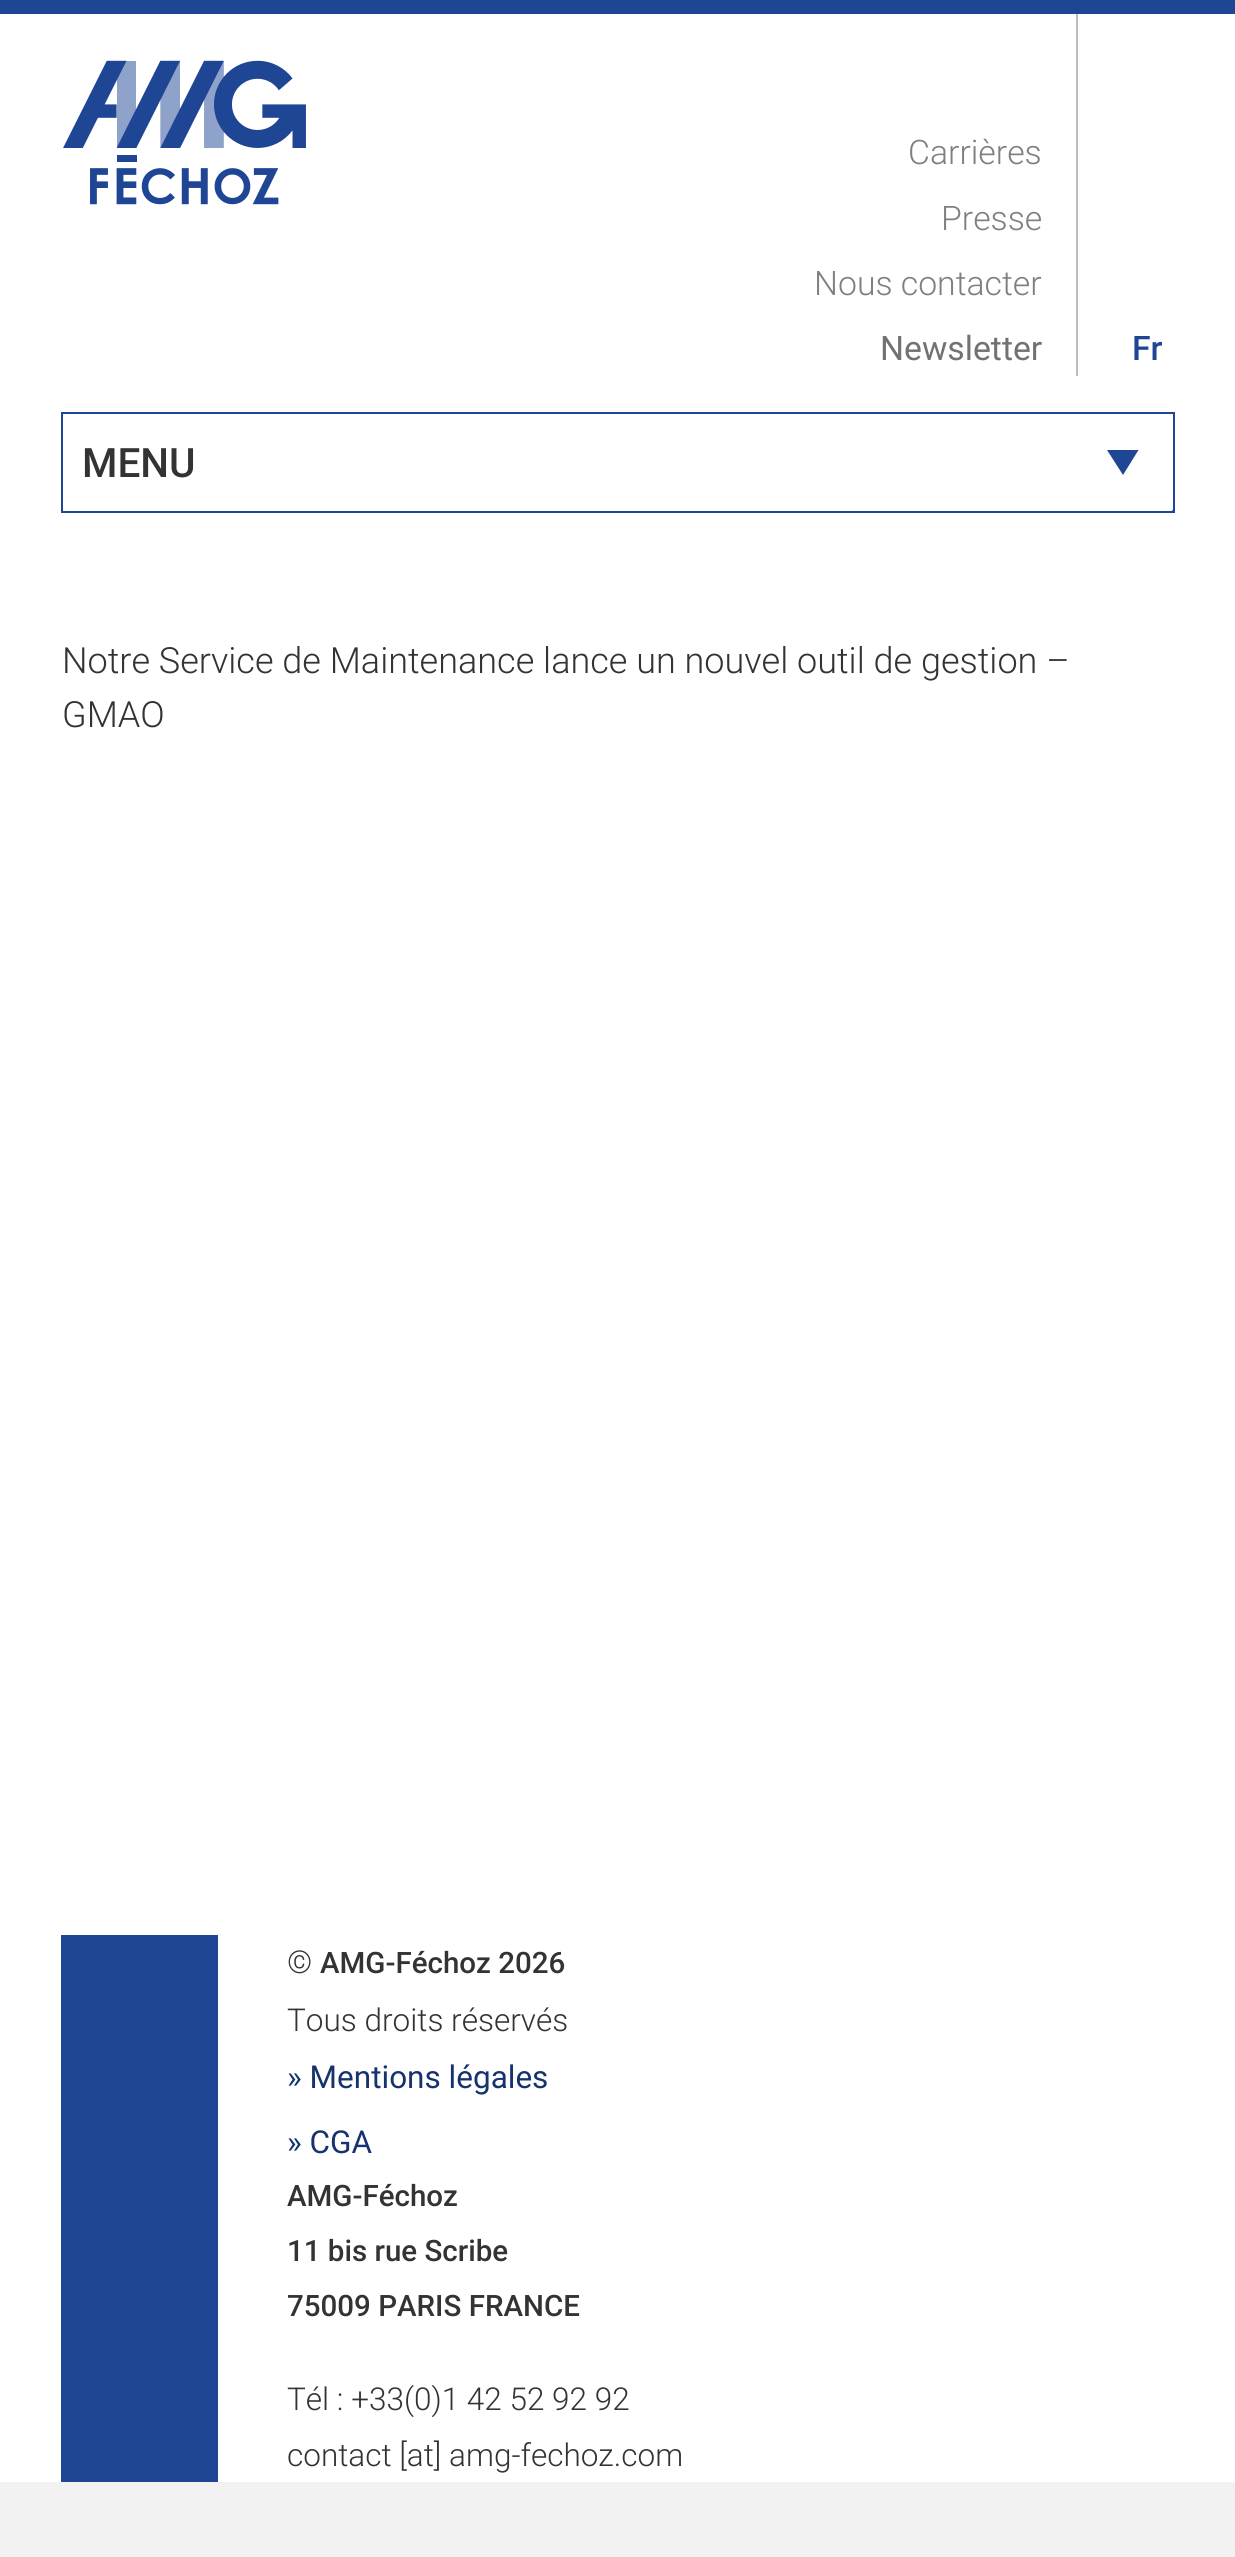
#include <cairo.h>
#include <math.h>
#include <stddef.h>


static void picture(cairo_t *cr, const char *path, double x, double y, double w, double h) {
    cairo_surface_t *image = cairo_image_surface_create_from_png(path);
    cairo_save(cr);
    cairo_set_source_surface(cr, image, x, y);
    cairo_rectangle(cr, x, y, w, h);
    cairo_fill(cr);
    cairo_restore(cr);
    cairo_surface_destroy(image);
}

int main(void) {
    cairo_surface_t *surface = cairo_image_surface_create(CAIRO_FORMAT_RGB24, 1235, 2557);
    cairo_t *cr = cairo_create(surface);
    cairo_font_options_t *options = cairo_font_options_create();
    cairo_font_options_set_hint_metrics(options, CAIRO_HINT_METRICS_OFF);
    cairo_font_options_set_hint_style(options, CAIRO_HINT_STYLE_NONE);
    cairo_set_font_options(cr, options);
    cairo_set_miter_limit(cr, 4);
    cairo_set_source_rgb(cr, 0.949, 0.949, 0.949);
    cairo_paint(cr);
    cairo_set_source_rgb(cr, 0.122, 0.271, 0.584);
    cairo_rectangle(cr, 0, 0, 1235, 14);
    cairo_fill(cr);
    cairo_set_source_rgb(cr, 1, 1, 1);
    cairo_rectangle(cr, 0, 14, 1235, 2468);
    cairo_fill(cr);
    picture(cr, "img1.png", 63, 60, 243, 145);
    cairo_set_source_rgb(cr, 0.741, 0.741, 0.741);
    cairo_rectangle(cr, 1076, 14, 2, 362);
    cairo_fill(cr);
    cairo_select_font_face(cr, "Roboto Light", CAIRO_FONT_SLANT_NORMAL, CAIRO_FONT_WEIGHT_NORMAL);
    cairo_set_font_size(cr, 33.75);
    cairo_set_source_rgb(cr, 0.498, 0.498, 0.498);
    cairo_move_to(cr, 908, 164);
    cairo_show_text(cr, "Carrières");
    cairo_move_to(cr, 941, 230);
    cairo_show_text(cr, "Presse");
    cairo_move_to(cr, 814, 295);
    cairo_show_text(cr, "Nous contacter");
    cairo_select_font_face(cr, "Roboto", CAIRO_FONT_SLANT_NORMAL, CAIRO_FONT_WEIGHT_NORMAL);
    cairo_set_source_rgb(cr, 0.447, 0.447, 0.447);
    cairo_move_to(cr, 880, 360);
    cairo_show_text(cr, "Newsletter");
    cairo_select_font_face(cr, "Roboto Medium", CAIRO_FONT_SLANT_NORMAL, CAIRO_FONT_WEIGHT_NORMAL);
    cairo_set_source_rgb(cr, 0.122, 0.271, 0.584);
    cairo_move_to(cr, 1132, 360);
    cairo_show_text(cr, "Fr");
    cairo_save(cr);
    cairo_rectangle(cr, 61, 412, 1114, 101);
    cairo_clip(cr);
    cairo_new_path(cr);
    cairo_move_to(cr, 1174, 508);
    cairo_line_to(cr, 1174, 936);
    cairo_line_to(cr, 1172, 934);
    cairo_line_to(cr, 1172, 511);
    cairo_close_path(cr);
    cairo_fill(cr);
    cairo_restore(cr);
    cairo_rectangle(cr, 62, 413, 1112, 99);
    cairo_stroke(cr);
    cairo_set_font_size(cr, 40.5);
    cairo_set_source_rgb(cr, 0.2, 0.2, 0.2);
    cairo_move_to(cr, 82, 477);
    cairo_show_text(cr, "MENU");
    cairo_set_source_rgb(cr, 0.122, 0.271, 0.584);
    cairo_new_path(cr);
    cairo_move_to(cr, 1107, 450);
    cairo_line_to(cr, 1138.5, 450);
    cairo_line_to(cr, 1123, 475);
    cairo_close_path(cr);
    cairo_fill(cr);
    cairo_select_font_face(cr, "Roboto Light", CAIRO_FONT_SLANT_NORMAL, CAIRO_FONT_WEIGHT_NORMAL);
    cairo_set_font_size(cr, 36);
    cairo_set_source_rgb(cr, 0.2, 0.2, 0.2);
    cairo_move_to(cr, 62, 673);
    cairo_show_text(cr, "Notre Service de Maintenance lance un nouvel outil de gestion –");
    cairo_move_to(cr, 62, 727);
    cairo_show_text(cr, "GMAO");
    cairo_set_source_rgb(cr, 0.122, 0.271, 0.584);
    cairo_rectangle(cr, 61, 1935, 157, 547);
    cairo_fill(cr);
    cairo_set_font_size(cr, 31.5);
    cairo_set_source_rgb(cr, 0.2, 0.2, 0.2);
    cairo_move_to(cr, 287, 1973);
    cairo_show_text(cr, "©");
    cairo_select_font_face(cr, "Roboto Medium", CAIRO_FONT_SLANT_NORMAL, CAIRO_FONT_WEIGHT_NORMAL);
    cairo_set_font_size(cr, 29.5);
    cairo_move_to(cr, 320, 1973);
    cairo_show_text(cr, "AMG-Féchoz 2026");
    cairo_select_font_face(cr, "Roboto Light", CAIRO_FONT_SLANT_NORMAL, CAIRO_FONT_WEIGHT_NORMAL);
    cairo_set_font_size(cr, 31.5);
    cairo_move_to(cr, 287, 2031);
    cairo_show_text(cr, "Tous droits réservés");
    cairo_select_font_face(cr, "Roboto", CAIRO_FONT_SLANT_NORMAL, CAIRO_FONT_WEIGHT_NORMAL);
    cairo_set_source_rgb(cr, 0.09, 0.2, 0.435);
    cairo_move_to(cr, 287, 2088);
    cairo_show_text(cr, "» Mentions légales");
    cairo_move_to(cr, 287, 2153);
    cairo_show_text(cr, "» CGA");
    cairo_select_font_face(cr, "Roboto Medium", CAIRO_FONT_SLANT_NORMAL, CAIRO_FONT_WEIGHT_NORMAL);
    cairo_set_font_size(cr, 29.5);
    cairo_set_source_rgb(cr, 0.2, 0.2, 0.2);
    cairo_move_to(cr, 287, 2206);
    cairo_show_text(cr, "AMG-Féchoz");
    cairo_move_to(cr, 287, 2261);
    cairo_show_text(cr, "11 bis rue Scribe");
    cairo_move_to(cr, 287, 2316);
    cairo_show_text(cr, "75009 PARIS FRANCE");
    cairo_select_font_face(cr, "Roboto Light", CAIRO_FONT_SLANT_NORMAL, CAIRO_FONT_WEIGHT_NORMAL);
    cairo_set_font_size(cr, 31.5);
    cairo_move_to(cr, 287, 2410);
    cairo_show_text(cr, "Tél : +33(0)1 42 52 92 92");
    cairo_move_to(cr, 287, 2466);
    cairo_show_text(cr, "contact [at] amg-fechoz.com");
    cairo_surface_write_to_png(surface, "page.png");
    cairo_font_options_destroy(options);
    cairo_destroy(cr);
    cairo_surface_destroy(surface);
    return 0;
}
